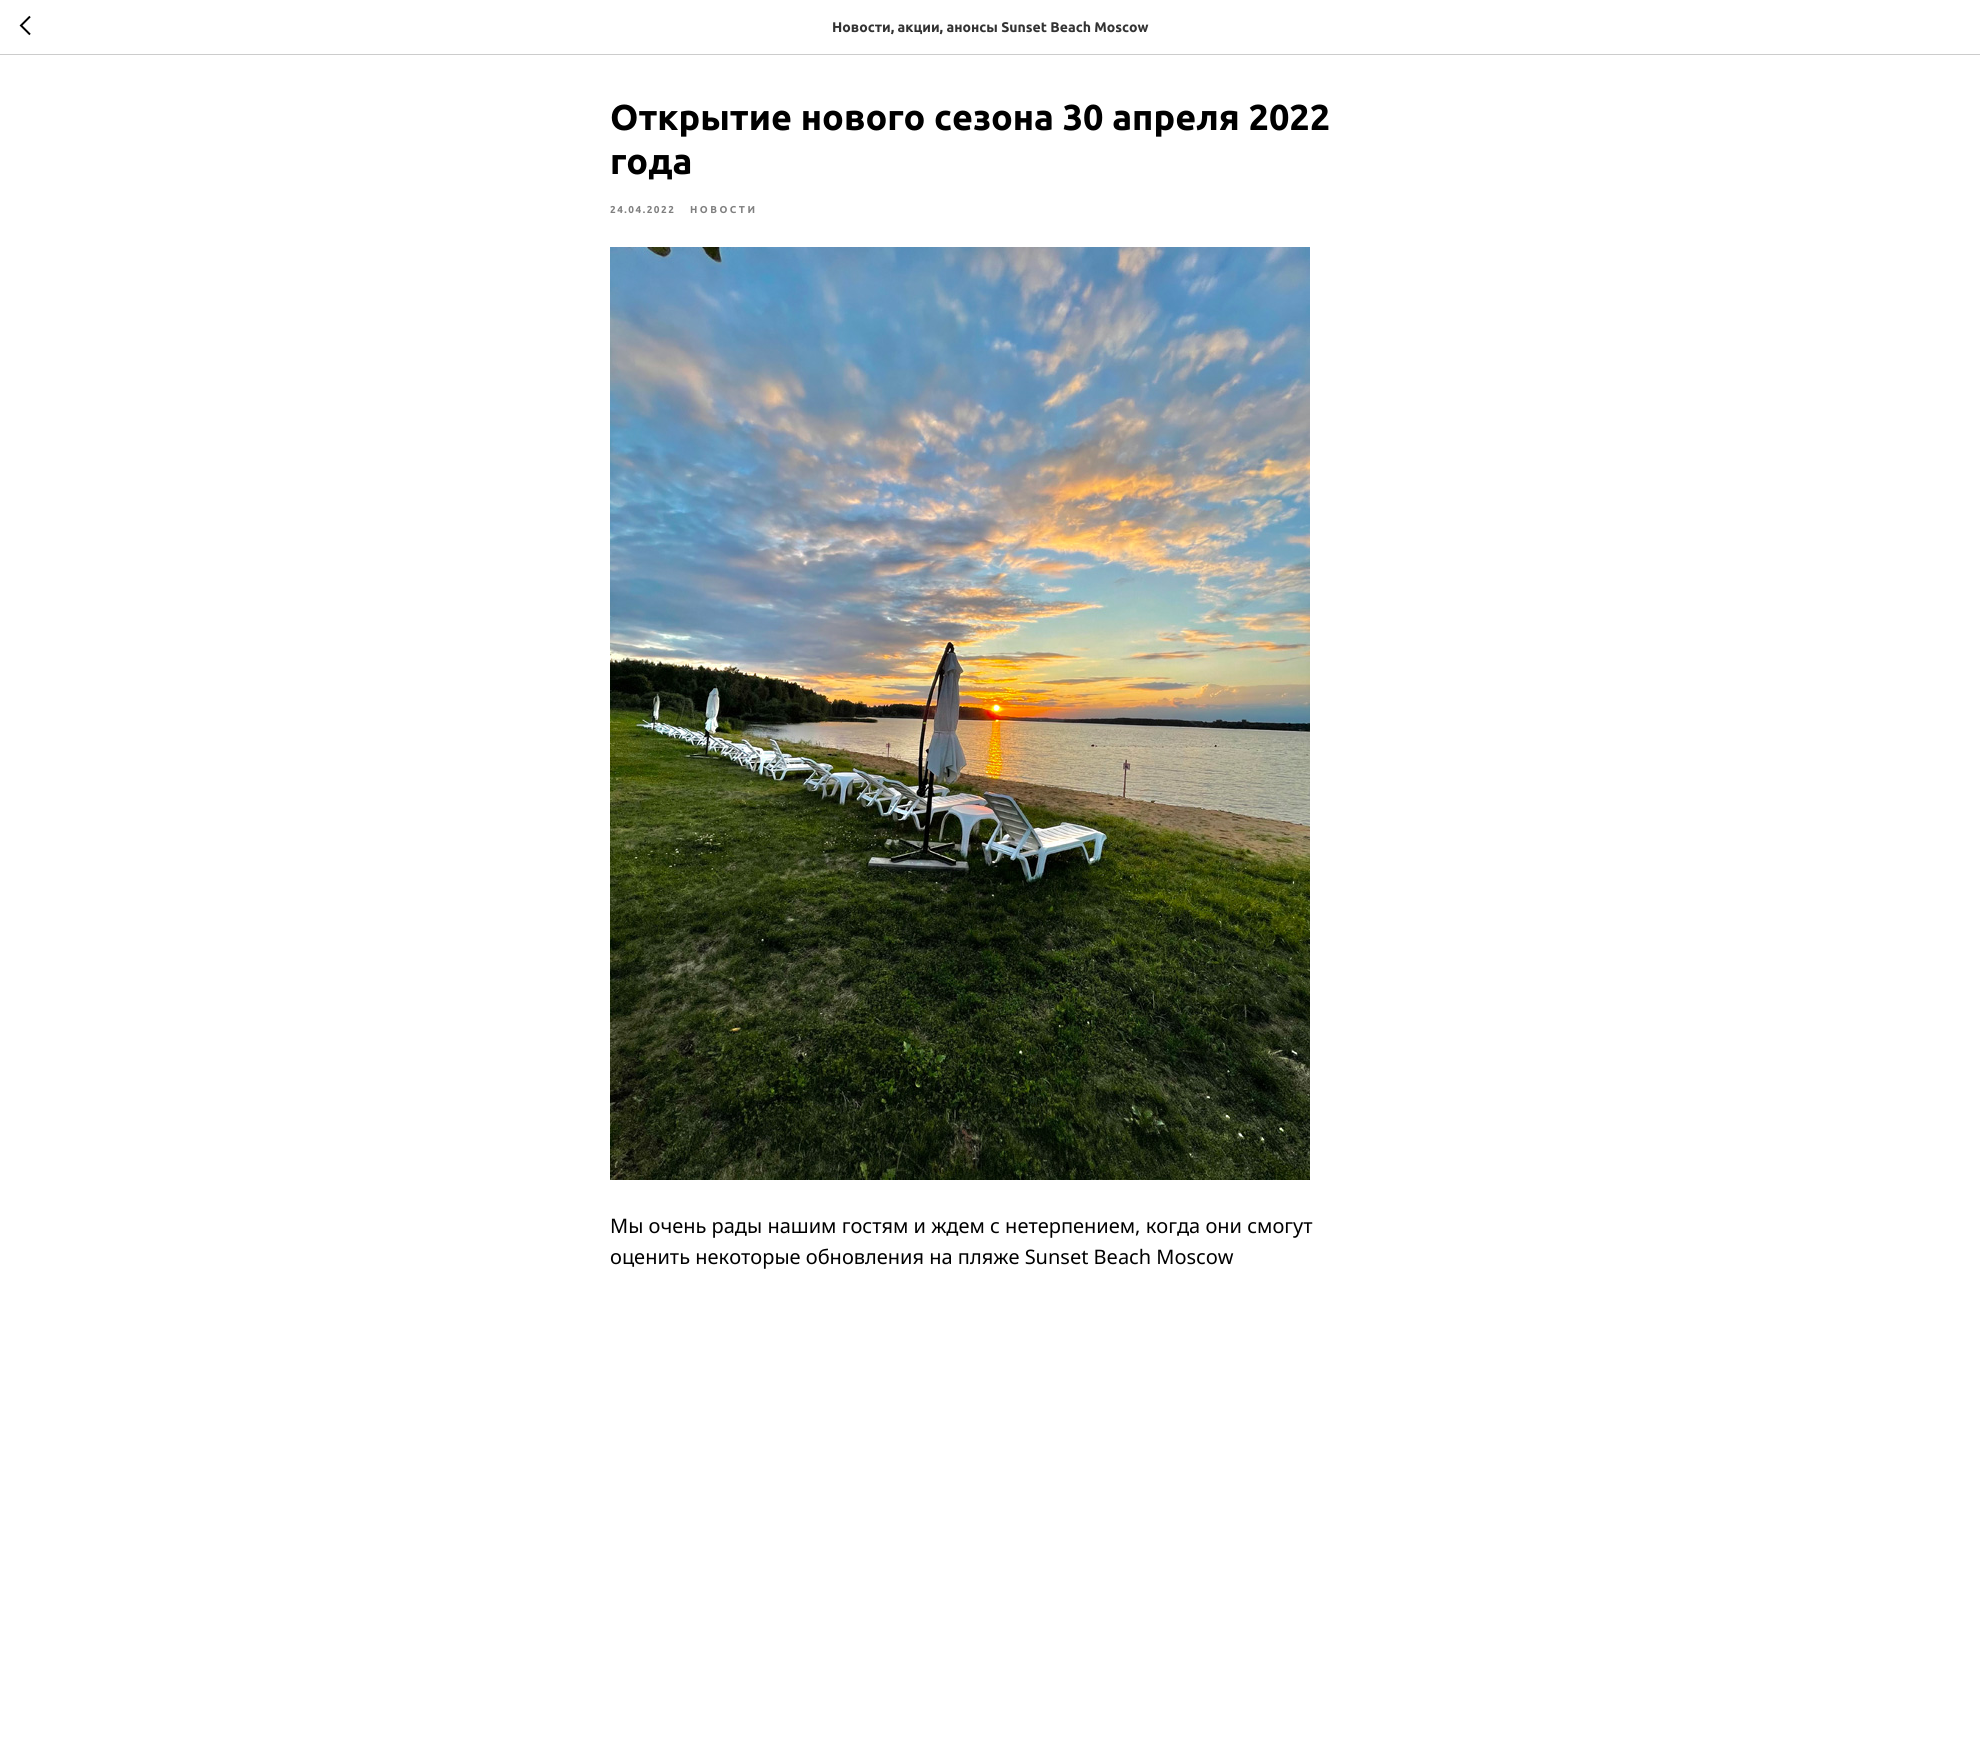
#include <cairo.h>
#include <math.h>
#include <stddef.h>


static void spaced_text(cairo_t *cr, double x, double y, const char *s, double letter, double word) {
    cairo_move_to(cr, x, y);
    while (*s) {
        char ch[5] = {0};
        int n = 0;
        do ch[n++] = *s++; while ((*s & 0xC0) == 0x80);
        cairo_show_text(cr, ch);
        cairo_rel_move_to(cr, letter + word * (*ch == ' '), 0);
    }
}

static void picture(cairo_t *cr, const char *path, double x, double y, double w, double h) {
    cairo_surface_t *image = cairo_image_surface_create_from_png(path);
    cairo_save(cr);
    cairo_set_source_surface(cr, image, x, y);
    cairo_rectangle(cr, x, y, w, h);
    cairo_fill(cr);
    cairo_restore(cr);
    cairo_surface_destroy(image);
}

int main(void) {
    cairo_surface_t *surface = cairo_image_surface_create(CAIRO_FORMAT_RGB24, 1980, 1758);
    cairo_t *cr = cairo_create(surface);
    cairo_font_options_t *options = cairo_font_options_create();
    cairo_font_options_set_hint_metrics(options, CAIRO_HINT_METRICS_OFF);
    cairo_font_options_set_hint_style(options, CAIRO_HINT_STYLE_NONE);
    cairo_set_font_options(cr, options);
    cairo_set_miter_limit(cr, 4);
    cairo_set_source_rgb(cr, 1, 1, 1);
    cairo_paint(cr);
    cairo_set_source_rgb(cr, 0.8, 0.8, 0.8);
    cairo_rectangle(cr, 0, 54, 1980, 1);
    cairo_fill(cr);
    cairo_new_path(cr);
    cairo_move_to(cr, 30, 34.5);
    cairo_line_to(cr, 21, 25.5);
    cairo_line_to(cr, 30, 16.5);
    cairo_set_source_rgb(cr, 0, 0, 0);
    cairo_stroke(cr);
    cairo_select_font_face(cr, "Ubuntu", CAIRO_FONT_SLANT_NORMAL, CAIRO_FONT_WEIGHT_BOLD);
    cairo_set_font_size(cr, 14);
    cairo_set_source_rgb(cr, 0.2, 0.2, 0.2);
    cairo_move_to(cr, 832, 32);
    cairo_show_text(cr, "Новости, акции, анонсы Sunset Beach Moscow");
    cairo_set_font_size(cr, 36);
    cairo_set_source_rgb(cr, 0, 0, 0);
    cairo_move_to(cr, 610, 130);
    cairo_show_text(cr, "Открытие нового сезона 30 апреля 2022");
    cairo_move_to(cr, 610, 174);
    cairo_show_text(cr, "года");
    cairo_set_font_size(cr, 10);
    cairo_set_source_rgb(cr, 0.502, 0.502, 0.502);
    spaced_text(cr, 610, 213, "24.04.2022", 1.5, 0);
    spaced_text(cr, 690, 213, "НОВОСТИ", 2.5, 0);
    picture(cr, "img1.png", 610, 247, 700, 933);
    cairo_select_font_face(cr, "Noto Sans", CAIRO_FONT_SLANT_NORMAL, CAIRO_FONT_WEIGHT_NORMAL);
    cairo_set_font_size(cr, 20);
    cairo_set_source_rgb(cr, 0, 0, 0);
    cairo_move_to(cr, 610, 1233);
    cairo_show_text(cr, "Мы очень рады нашим гостям и ждем с нетерпением, когда они смогут");
    cairo_move_to(cr, 610, 1264);
    cairo_show_text(cr, "оценить некоторые обновления на пляже Sunset Beach Moscow");
    cairo_surface_write_to_png(surface, "page.png");
    cairo_font_options_destroy(options);
    cairo_destroy(cr);
    cairo_surface_destroy(surface);
    return 0;
}
